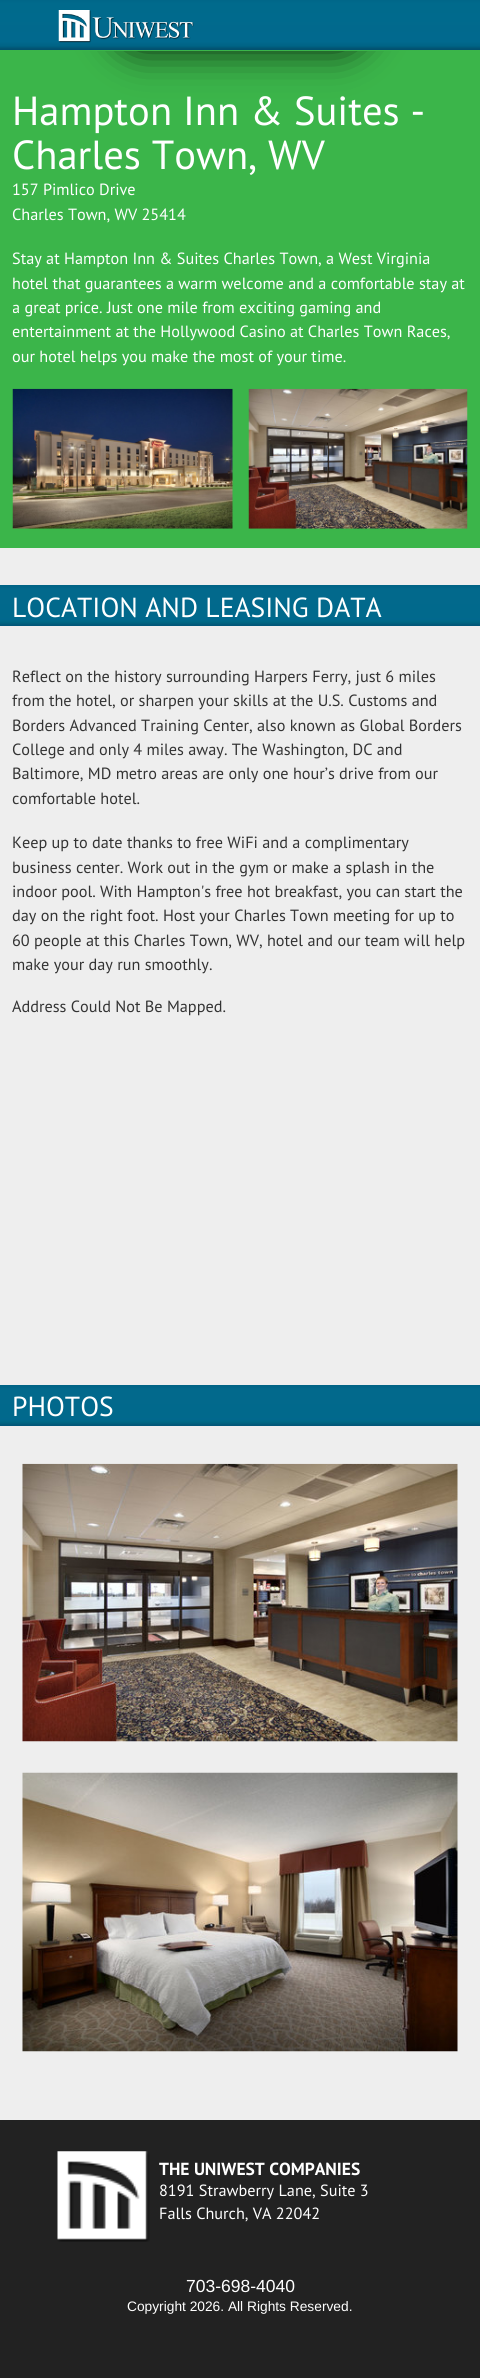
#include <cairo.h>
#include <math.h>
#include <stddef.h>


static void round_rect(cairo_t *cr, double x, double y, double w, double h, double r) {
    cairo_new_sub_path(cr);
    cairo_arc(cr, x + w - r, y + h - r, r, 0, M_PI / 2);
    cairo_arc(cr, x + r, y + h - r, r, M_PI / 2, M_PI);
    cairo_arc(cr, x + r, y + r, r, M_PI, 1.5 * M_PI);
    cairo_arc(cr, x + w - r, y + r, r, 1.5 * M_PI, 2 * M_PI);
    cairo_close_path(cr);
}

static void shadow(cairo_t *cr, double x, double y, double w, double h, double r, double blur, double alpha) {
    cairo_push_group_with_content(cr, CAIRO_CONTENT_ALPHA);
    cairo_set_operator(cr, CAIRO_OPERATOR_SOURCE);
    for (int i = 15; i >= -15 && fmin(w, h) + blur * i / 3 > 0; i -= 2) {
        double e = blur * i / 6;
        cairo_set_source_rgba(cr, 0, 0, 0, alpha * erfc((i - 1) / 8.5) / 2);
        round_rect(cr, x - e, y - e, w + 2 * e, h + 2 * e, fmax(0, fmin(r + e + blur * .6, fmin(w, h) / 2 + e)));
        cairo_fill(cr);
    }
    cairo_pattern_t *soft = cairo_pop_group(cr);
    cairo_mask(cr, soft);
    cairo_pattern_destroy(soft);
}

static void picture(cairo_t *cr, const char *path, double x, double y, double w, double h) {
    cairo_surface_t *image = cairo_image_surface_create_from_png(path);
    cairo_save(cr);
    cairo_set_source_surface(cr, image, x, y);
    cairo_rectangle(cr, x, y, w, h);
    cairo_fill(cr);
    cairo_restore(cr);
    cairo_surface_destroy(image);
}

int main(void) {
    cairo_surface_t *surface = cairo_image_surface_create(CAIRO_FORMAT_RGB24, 480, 2378);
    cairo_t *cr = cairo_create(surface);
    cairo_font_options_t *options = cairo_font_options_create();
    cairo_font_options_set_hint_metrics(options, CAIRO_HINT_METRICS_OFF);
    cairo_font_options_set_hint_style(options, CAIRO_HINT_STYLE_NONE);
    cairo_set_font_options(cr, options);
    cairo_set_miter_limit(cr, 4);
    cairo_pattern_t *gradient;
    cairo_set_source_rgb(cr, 0.133, 0.133, 0.133);
    cairo_paint(cr);
    gradient = cairo_pattern_create_linear(240, 0, 240, 50);
    cairo_pattern_add_color_stop_rgba(gradient, 0, 0, 0.4, 0.537, 1);
    cairo_pattern_add_color_stop_rgba(gradient, 0.08, 0, 0.416, 0.549, 1);
    cairo_pattern_add_color_stop_rgba(gradient, 0.83, 0.004, 0.412, 0.557, 1);
    cairo_pattern_add_color_stop_rgba(gradient, 0.92, 0, 0.388, 0.522, 1);
    cairo_pattern_add_color_stop_rgba(gradient, 0.98, 0.008, 0.318, 0.435, 1);
    cairo_pattern_add_color_stop_rgba(gradient, 1, 0.008, 0.318, 0.435, 1);
    cairo_set_source(cr, gradient);
    cairo_pattern_destroy(gradient);
    cairo_rectangle(cr, 0, 0, 480, 50);
    cairo_fill(cr);
    cairo_set_source_rgb(cr, 0.231, 0.71, 0.29);
    cairo_rectangle(cr, 0, 50, 480, 498);
    cairo_fill(cr);
    cairo_save(cr);
    cairo_rectangle(cr, 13, 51, 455, 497);
    cairo_clip(cr);
    cairo_set_source_rgb(cr, 0, 0, 0);
    shadow(cr, 113, -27, 255, 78, 31, 19, 0.8);
    cairo_restore(cr);
    picture(cr, "img1.png", 58, 10, 136, 33);
    cairo_select_font_face(cr, "PT Sans", CAIRO_FONT_SLANT_NORMAL, CAIRO_FONT_WEIGHT_NORMAL);
    cairo_set_font_size(cr, 40.6);
    cairo_set_source_rgb(cr, 1, 1, 1);
    cairo_move_to(cr, 12, 125);
    cairo_show_text(cr, "Hampton Inn & Suites -");
    cairo_move_to(cr, 12, 169);
    cairo_show_text(cr, "Charles Town, WV");
    cairo_set_font_size(cr, 16.25);
    cairo_move_to(cr, 12, 195);
    cairo_show_text(cr, "157 Pimlico Drive");
    cairo_move_to(cr, 12, 220);
    cairo_show_text(cr, "Charles Town, WV 25414");
    cairo_move_to(cr, 12, 264);
    cairo_show_text(cr, "Stay at Hampton Inn & Suites Charles Town, a West Virginia");
    cairo_move_to(cr, 12, 289);
    cairo_show_text(cr, "hotel that guarantees a warm welcome and a comfortable stay at");
    cairo_save(cr);
    cairo_rectangle(cr, 13, 89, 455, 300);
    cairo_clip(cr);
    cairo_move_to(cr, 12, 313);
    cairo_show_text(cr, "a great price. Just one mile from exciting gaming and");
    cairo_restore(cr);
    cairo_move_to(cr, 12, 337);
    cairo_show_text(cr, "entertainment at the Hollywood Casino at Charles Town Races,");
    cairo_move_to(cr, 12, 362);
    cairo_show_text(cr, "our hotel helps you make the most of your time.");
    picture(cr, "img2.png", 12, 388, 221, 141);
    picture(cr, "img3.png", 248, 388, 220, 141);
    cairo_set_source_rgb(cr, 0.933, 0.933, 0.933);
    cairo_rectangle(cr, 0, 548, 480, 1572);
    cairo_fill(cr);
    gradient = cairo_pattern_create_linear(240, 585, 240, 626);
    cairo_pattern_add_color_stop_rgba(gradient, 0, 0, 0.384, 0.518, 1);
    cairo_pattern_add_color_stop_rgba(gradient, 0.1, 0.008, 0.412, 0.549, 1);
    cairo_pattern_add_color_stop_rgba(gradient, 0.79, 0.004, 0.412, 0.549, 1);
    cairo_pattern_add_color_stop_rgba(gradient, 0.83, 0.004, 0.404, 0.561, 1);
    cairo_pattern_add_color_stop_rgba(gradient, 0.86, 0, 0.412, 0.545, 1);
    cairo_pattern_add_color_stop_rgba(gradient, 0.9, 0, 0.404, 0.518, 1);
    cairo_pattern_add_color_stop_rgba(gradient, 0.93, 0.004, 0.388, 0.502, 1);
    cairo_pattern_add_color_stop_rgba(gradient, 0.97, 0.008, 0.345, 0.475, 1);
    cairo_pattern_add_color_stop_rgba(gradient, 1, 0.004, 0.341, 0.478, 1);
    cairo_set_source(cr, gradient);
    cairo_pattern_destroy(gradient);
    cairo_rectangle(cr, 0, 585, 480, 41);
    cairo_fill(cr);
    cairo_set_font_size(cr, 27.6);
    cairo_set_source_rgb(cr, 1, 1, 1);
    cairo_move_to(cr, 12, 617);
    cairo_show_text(cr, "LOCATION AND LEASING DATA");
    cairo_set_font_size(cr, 16.25);
    cairo_set_source_rgb(cr, 0.2, 0.2, 0.2);
    cairo_move_to(cr, 12, 682);
    cairo_show_text(cr, "Reflect on the history surrounding Harpers Ferry, just 6 miles");
    cairo_move_to(cr, 12, 706);
    cairo_show_text(cr, "from the hotel, or sharpen your skills at the U.S. Customs and");
    cairo_move_to(cr, 12, 731);
    cairo_show_text(cr, "Borders Advanced Training Center, also known as Global Borders");
    cairo_move_to(cr, 12, 755);
    cairo_show_text(cr, "College and only 4 miles away. The Washington, DC and");
    cairo_move_to(cr, 12, 779);
    cairo_show_text(cr, "Baltimore, MD metro areas are only one hour’s drive from our");
    cairo_move_to(cr, 12, 804);
    cairo_show_text(cr, "comfortable hotel.");
    cairo_move_to(cr, 12, 848);
    cairo_show_text(cr, "Keep up to date thanks to free WiFi and a complimentary");
    cairo_move_to(cr, 12, 873);
    cairo_show_text(cr, "business center. Work out in the gym or make a splash in the");
    cairo_move_to(cr, 12, 897);
    cairo_show_text(cr, "indoor pool. With Hampton's free hot breakfast, you can start the");
    cairo_move_to(cr, 12, 921);
    cairo_show_text(cr, "day on the right foot. Host your Charles Town meeting for up to");
    cairo_move_to(cr, 12, 946);
    cairo_show_text(cr, "60 people at this Charles Town, WV, hotel and our team will help");
    cairo_move_to(cr, 12, 970);
    cairo_show_text(cr, "make your day run smoothly.");
    cairo_move_to(cr, 12, 1012);
    cairo_show_text(cr, "Address Could Not Be Mapped.");
    gradient = cairo_pattern_create_linear(240, 1385, 240, 1426);
    cairo_pattern_add_color_stop_rgba(gradient, 0, 0, 0.384, 0.518, 1);
    cairo_pattern_add_color_stop_rgba(gradient, 0.1, 0.008, 0.412, 0.549, 1);
    cairo_pattern_add_color_stop_rgba(gradient, 0.79, 0.004, 0.412, 0.549, 1);
    cairo_pattern_add_color_stop_rgba(gradient, 0.83, 0.004, 0.404, 0.561, 1);
    cairo_pattern_add_color_stop_rgba(gradient, 0.86, 0, 0.412, 0.545, 1);
    cairo_pattern_add_color_stop_rgba(gradient, 0.9, 0, 0.404, 0.518, 1);
    cairo_pattern_add_color_stop_rgba(gradient, 0.93, 0.004, 0.388, 0.502, 1);
    cairo_pattern_add_color_stop_rgba(gradient, 0.97, 0.008, 0.345, 0.475, 1);
    cairo_pattern_add_color_stop_rgba(gradient, 1, 0.004, 0.341, 0.478, 1);
    cairo_set_source(cr, gradient);
    cairo_pattern_destroy(gradient);
    cairo_rectangle(cr, 0, 1385, 480, 41);
    cairo_fill(cr);
    cairo_set_font_size(cr, 27.6);
    cairo_set_source_rgb(cr, 1, 1, 1);
    cairo_move_to(cr, 12, 1416);
    cairo_show_text(cr, "PHOTOS");
    picture(cr, "img4.png", 22, 1463, 436, 279);
    picture(cr, "img5.png", 22, 1772, 436, 280);
    picture(cr, "img6.png", 57, 2151, 93, 91);
    cairo_select_font_face(cr, "PT Sans", CAIRO_FONT_SLANT_NORMAL, CAIRO_FONT_WEIGHT_BOLD);
    cairo_set_font_size(cr, 17.5);
    cairo_move_to(cr, 159, 2175);
    cairo_show_text(cr, "THE UNIWEST COMPANIES");
    cairo_select_font_face(cr, "PT Sans", CAIRO_FONT_SLANT_NORMAL, CAIRO_FONT_WEIGHT_NORMAL);
    cairo_set_font_size(cr, 16.25);
    cairo_move_to(cr, 159, 2196);
    cairo_show_text(cr, "8191 Strawberry Lane, Suite 3");
    cairo_move_to(cr, 159, 2219);
    cairo_show_text(cr, "Falls Church, VA 22042");
    cairo_select_font_face(cr, "Liberation Sans", CAIRO_FONT_SLANT_NORMAL, CAIRO_FONT_WEIGHT_NORMAL);
    cairo_set_font_size(cr, 17.5);
    cairo_move_to(cr, 186, 2292);
    cairo_show_text(cr, "703-698-4040");
    cairo_set_font_size(cr, 13.75);
    cairo_move_to(cr, 127, 2311);
    cairo_show_text(cr, "Copyright 2026. All Rights Reserved.");
    cairo_surface_write_to_png(surface, "page.png");
    cairo_font_options_destroy(options);
    cairo_destroy(cr);
    cairo_surface_destroy(surface);
    return 0;
}
